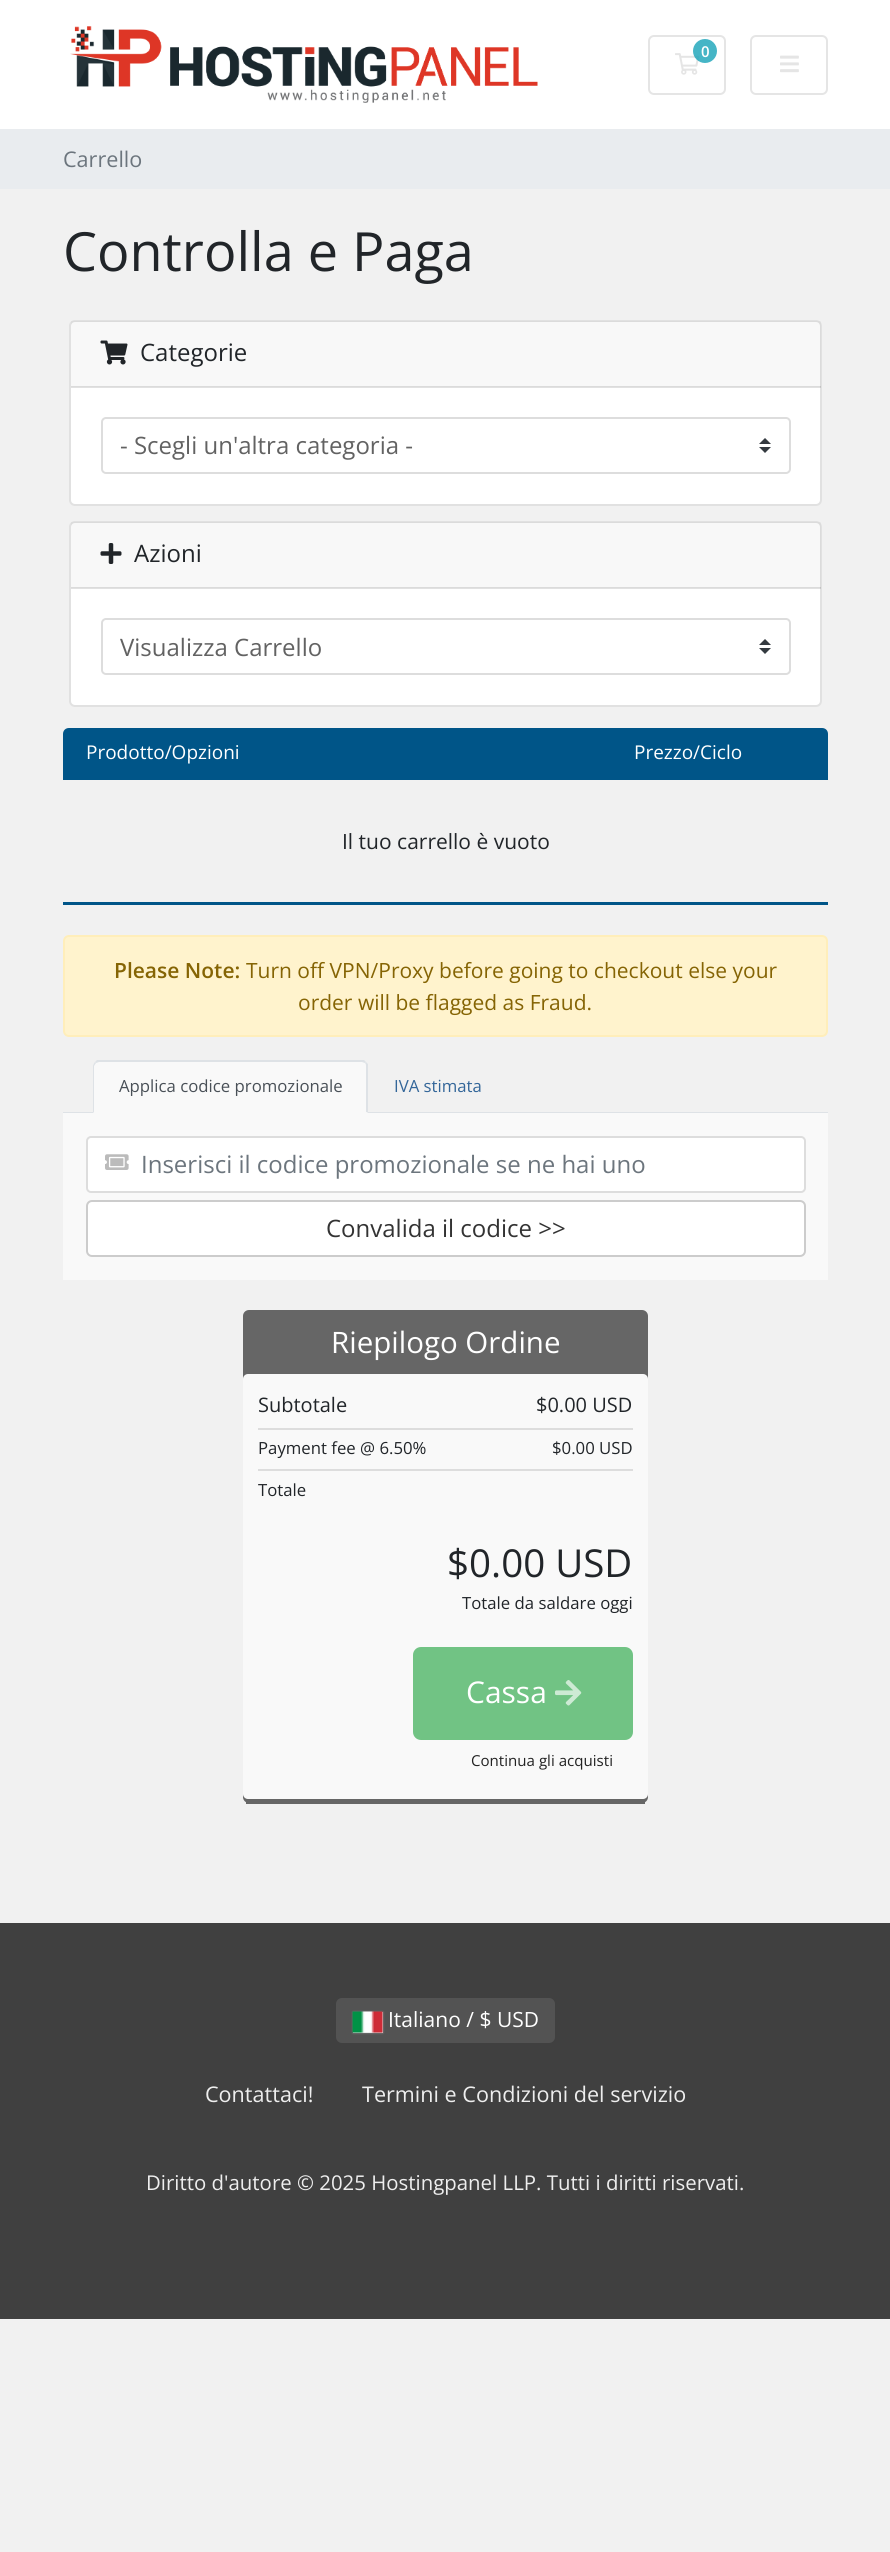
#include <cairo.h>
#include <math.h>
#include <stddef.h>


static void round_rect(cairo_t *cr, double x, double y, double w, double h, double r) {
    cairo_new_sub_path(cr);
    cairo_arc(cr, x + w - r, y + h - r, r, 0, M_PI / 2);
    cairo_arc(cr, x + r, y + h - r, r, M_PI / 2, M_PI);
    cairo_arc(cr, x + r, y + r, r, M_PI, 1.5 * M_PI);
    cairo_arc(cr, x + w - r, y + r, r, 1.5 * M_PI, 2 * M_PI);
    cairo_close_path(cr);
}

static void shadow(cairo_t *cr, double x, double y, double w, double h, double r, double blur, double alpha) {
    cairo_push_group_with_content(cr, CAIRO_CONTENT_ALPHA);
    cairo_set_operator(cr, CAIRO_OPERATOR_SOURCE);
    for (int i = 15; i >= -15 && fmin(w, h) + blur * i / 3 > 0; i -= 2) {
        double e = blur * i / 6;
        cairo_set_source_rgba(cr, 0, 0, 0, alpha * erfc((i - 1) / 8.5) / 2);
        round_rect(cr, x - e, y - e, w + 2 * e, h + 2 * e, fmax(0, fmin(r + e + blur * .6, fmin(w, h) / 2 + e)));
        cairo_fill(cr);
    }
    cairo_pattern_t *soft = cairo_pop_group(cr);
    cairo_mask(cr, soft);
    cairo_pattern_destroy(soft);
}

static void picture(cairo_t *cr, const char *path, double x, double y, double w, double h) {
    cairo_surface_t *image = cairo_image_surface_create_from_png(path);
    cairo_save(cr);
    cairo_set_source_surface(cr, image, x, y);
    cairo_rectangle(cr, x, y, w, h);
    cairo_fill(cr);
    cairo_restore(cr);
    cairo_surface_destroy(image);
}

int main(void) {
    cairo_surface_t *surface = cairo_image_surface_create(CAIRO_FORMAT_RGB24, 890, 2552);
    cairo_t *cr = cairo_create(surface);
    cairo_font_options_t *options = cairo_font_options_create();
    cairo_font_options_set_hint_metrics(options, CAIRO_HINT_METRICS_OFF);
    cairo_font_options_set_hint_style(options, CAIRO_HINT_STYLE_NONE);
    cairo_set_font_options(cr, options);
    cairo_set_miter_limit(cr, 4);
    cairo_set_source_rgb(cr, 0.945, 0.945, 0.945);
    cairo_paint(cr);
    cairo_set_source_rgb(cr, 1, 1, 1);
    cairo_rectangle(cr, 0, 0, 890, 129);
    cairo_fill(cr);
    picture(cr, "img1.png", 70, 26, 468, 77);
    round_rect(cr, 649, 36, 76, 58, 5);
    cairo_set_source_rgb(cr, 0.898, 0.898, 0.898);
    cairo_stroke(cr);
    picture(cr, "img2.png", 675, 53, 25, 22);
    cairo_set_source_rgba(cr, 0.09, 0.635, 0.722, 0.8);
    cairo_arc(cr, 705, 51, 12, 0, 2 * M_PI);
    cairo_fill(cr);
    cairo_select_font_face(cr, "Open Sans SemiBold", CAIRO_FONT_SLANT_NORMAL, CAIRO_FONT_WEIGHT_NORMAL);
    cairo_set_font_size(cr, 15);
    cairo_set_source_rgb(cr, 1, 1, 1);
    cairo_move_to(cr, 701, 57);
    cairo_show_text(cr, "0");
    round_rect(cr, 751, 36, 76, 58, 5);
    cairo_set_source_rgb(cr, 0.898, 0.898, 0.898);
    cairo_stroke(cr);
    picture(cr, "img3.png", 780, 55, 19, 18);
    cairo_set_source_rgb(cr, 0.914, 0.925, 0.937);
    cairo_rectangle(cr, 0, 129, 890, 60);
    cairo_fill(cr);
    cairo_select_font_face(cr, "Open Sans", CAIRO_FONT_SLANT_NORMAL, CAIRO_FONT_WEIGHT_NORMAL);
    cairo_set_font_size(cr, 21.6);
    cairo_set_source_rgb(cr, 0.424, 0.459, 0.49);
    cairo_move_to(cr, 63, 167);
    cairo_show_text(cr, "Carrello");
    cairo_set_font_size(cr, 54);
    cairo_set_source_rgb(cr, 0.129, 0.145, 0.161);
    cairo_move_to(cr, 63, 271);
    cairo_show_text(cr, "Controlla e Paga");
    cairo_set_source_rgb(cr, 1, 1, 1);
    round_rect(cr, 69, 320, 753, 186, 6);
    cairo_fill(cr);
    round_rect(cr, 70, 321, 751, 184, 5);
    cairo_set_source_rgba(cr, 0, 0, 0, 0.12);
    cairo_stroke(cr);
    cairo_set_source_rgba(cr, 0, 0, 0, 0.03);
    cairo_rectangle(cr, 71, 321, 750, 66);
    cairo_fill(cr);
    cairo_set_source_rgba(cr, 0, 0, 0, 0.12);
    cairo_rectangle(cr, 71, 386, 750, 2);
    cairo_fill(cr);
    picture(cr, "img4.png", 100, 340, 28, 25);
    cairo_set_font_size(cr, 24);
    cairo_set_source_rgb(cr, 0.129, 0.145, 0.161);
    cairo_move_to(cr, 140, 361);
    cairo_show_text(cr, "Categorie");
    picture(cr, "img5.png", 759, 438, 12, 15);
    round_rect(cr, 102, 418, 688, 55, 4);
    cairo_set_source_rgb(cr, 0.867, 0.867, 0.867);
    cairo_stroke(cr);
    cairo_set_source_rgb(cr, 0.384, 0.384, 0.384);
    cairo_move_to(cr, 120, 454);
    cairo_show_text(cr, "- Scegli un'altra categoria -");
    cairo_set_source_rgb(cr, 1, 1, 1);
    round_rect(cr, 69, 521, 753, 186, 6);
    cairo_fill(cr);
    round_rect(cr, 70, 522, 751, 184, 5);
    cairo_set_source_rgba(cr, 0, 0, 0, 0.12);
    cairo_stroke(cr);
    cairo_set_source_rgba(cr, 0, 0, 0, 0.03);
    cairo_rectangle(cr, 71, 522, 750, 66);
    cairo_fill(cr);
    cairo_set_source_rgba(cr, 0, 0, 0, 0.12);
    cairo_rectangle(cr, 71, 587, 750, 2);
    cairo_fill(cr);
    picture(cr, "img6.png", 100, 543, 22, 21);
    cairo_set_source_rgb(cr, 0.129, 0.145, 0.161);
    cairo_move_to(cr, 134, 562);
    cairo_show_text(cr, "Azioni");
    picture(cr, "img5.png", 759, 639, 12, 15);
    round_rect(cr, 102, 619, 688, 55, 4);
    cairo_set_source_rgb(cr, 0.867, 0.867, 0.867);
    cairo_stroke(cr);
    cairo_set_source_rgb(cr, 0.384, 0.384, 0.384);
    cairo_move_to(cr, 120, 656);
    cairo_show_text(cr, "Visualizza Carrello");
    cairo_set_source_rgb(cr, 0, 0.333, 0.533);
    cairo_new_path(cr);
    cairo_move_to(cr, 69, 728);
    cairo_line_to(cr, 822, 728);
    cairo_curve_to(cr, 825.5, 728, 828, 730.5, 828, 734);
    cairo_line_to(cr, 828, 780);
    cairo_line_to(cr, 63, 780);
    cairo_line_to(cr, 63, 734);
    cairo_curve_to(cr, 63, 730.5, 65.5, 728, 69, 728);
    cairo_close_path(cr);
    cairo_fill(cr);
    cairo_set_font_size(cr, 19);
    cairo_set_source_rgb(cr, 1, 1, 1);
    cairo_move_to(cr, 86, 759);
    cairo_show_text(cr, "Prodotto/Opzioni");
    cairo_move_to(cr, 634, 759);
    cairo_show_text(cr, "Prezzo/Ciclo");
    cairo_set_source_rgb(cr, 0, 0.333, 0.533);
    cairo_rectangle(cr, 63, 902, 765, 3);
    cairo_fill(cr);
    cairo_set_font_size(cr, 21);
    cairo_set_source_rgb(cr, 0.129, 0.145, 0.161);
    cairo_move_to(cr, 342, 849);
    cairo_show_text(cr, "Il tuo carrello è vuoto");
    cairo_set_source_rgb(cr, 1, 0.953, 0.804);
    round_rect(cr, 64, 936, 763, 100, 5);
    cairo_fill_preserve(cr);
    cairo_set_source_rgb(cr, 1, 0.933, 0.729);
    cairo_stroke(cr);
    cairo_select_font_face(cr, "Open Sans SemiBold", CAIRO_FONT_SLANT_NORMAL, CAIRO_FONT_WEIGHT_NORMAL);
    cairo_set_source_rgb(cr, 0.522, 0.392, 0.016);
    cairo_move_to(cr, 114, 978);
    cairo_show_text(cr, "Please Note:");
    cairo_select_font_face(cr, "Open Sans", CAIRO_FONT_SLANT_NORMAL, CAIRO_FONT_WEIGHT_NORMAL);
    cairo_move_to(cr, 246, 978);
    cairo_show_text(cr, "Turn off VPN/Proxy before going to checkout else your");
    cairo_move_to(cr, 298, 1010);
    cairo_show_text(cr, "order will be flagged as Fraud.");
    cairo_set_source_rgb(cr, 0.871, 0.886, 0.902);
    cairo_rectangle(cr, 63, 1112, 765, 1);
    cairo_fill(cr);
    cairo_set_source_rgb(cr, 0.973, 0.973, 0.973);
    cairo_new_path(cr);
    cairo_move_to(cr, 99, 1061);
    cairo_line_to(cr, 362, 1061);
    cairo_curve_to(cr, 365.5, 1061, 368, 1063.5, 368, 1067);
    cairo_line_to(cr, 368, 1113);
    cairo_line_to(cr, 93, 1113);
    cairo_line_to(cr, 93, 1067);
    cairo_curve_to(cr, 93, 1063.5, 95.5, 1061, 99, 1061);
    cairo_close_path(cr);
    cairo_fill(cr);
    cairo_set_source_rgb(cr, 0.871, 0.886, 0.902);
    cairo_new_path(cr);
    cairo_move_to(cr, 99, 1062);
    cairo_line_to(cr, 96, 1063);
    cairo_line_to(cr, 95, 1062);
    cairo_line_to(cr, 97, 1060);
    cairo_line_to(cr, 364, 1060);
    cairo_line_to(cr, 366, 1062);
    cairo_line_to(cr, 365, 1063);
    cairo_line_to(cr, 362, 1062);
    cairo_close_path(cr);
    cairo_fill(cr);
    cairo_new_path(cr);
    cairo_move_to(cr, 368, 1064);
    cairo_line_to(cr, 368, 1113);
    cairo_line_to(cr, 366, 1112);
    cairo_line_to(cr, 366, 1066);
    cairo_curve_to(cr, 366, 1065, 366, 1064, 365, 1063);
    cairo_line_to(cr, 366, 1062);
    cairo_close_path(cr);
    cairo_fill(cr);
    cairo_set_source_rgb(cr, 0.973, 0.973, 0.973);
    cairo_new_path(cr);
    cairo_move_to(cr, 368, 1113);
    cairo_line_to(cr, 366, 1112);
    cairo_line_to(cr, 94, 1112);
    cairo_line_to(cr, 93, 1113);
    cairo_close_path(cr);
    cairo_fill(cr);
    cairo_set_source_rgb(cr, 0.871, 0.886, 0.902);
    cairo_new_path(cr);
    cairo_move_to(cr, 93, 1113);
    cairo_line_to(cr, 94, 1112);
    cairo_line_to(cr, 94, 1066);
    cairo_line_to(cr, 96, 1063);
    cairo_line_to(cr, 95, 1062);
    cairo_curve_to(cr, 94, 1063, 93, 1065, 93, 1066);
    cairo_close_path(cr);
    cairo_fill(cr);
    cairo_set_font_size(cr, 16.75);
    cairo_set_source_rgb(cr, 0.286, 0.314, 0.341);
    cairo_move_to(cr, 119, 1092);
    cairo_show_text(cr, "Applica codice promozionale");
    cairo_set_source_rgb(cr, 0.2, 0.4, 0.6);
    cairo_move_to(cr, 394, 1092);
    cairo_show_text(cr, "IVA stimata");
    cairo_set_source_rgb(cr, 0.973, 0.973, 0.973);
    cairo_rectangle(cr, 63, 1113, 765, 167);
    cairo_fill(cr);
    cairo_set_source_rgb(cr, 1, 1, 1);
    round_rect(cr, 87, 1137, 718, 55, 4);
    cairo_fill_preserve(cr);
    cairo_set_source_rgb(cr, 0.867, 0.867, 0.867);
    cairo_stroke(cr);
    picture(cr, "img7.png", 105, 1154, 24, 16);
    cairo_set_font_size(cr, 24);
    cairo_set_source_rgb(cr, 0.424, 0.459, 0.49);
    cairo_move_to(cr, 141, 1173);
    cairo_show_text(cr, "Inserisci il codice promozionale se ne hai uno");
    cairo_set_source_rgb(cr, 1, 1, 1);
    round_rect(cr, 87, 1201, 718, 55, 5);
    cairo_fill_preserve(cr);
    cairo_set_source_rgb(cr, 0.8, 0.8, 0.8);
    cairo_stroke(cr);
    cairo_set_source_rgb(cr, 0.2, 0.2, 0.2);
    cairo_move_to(cr, 326, 1237);
    cairo_show_text(cr, "Convalida il codice >>");
    cairo_set_source_rgb(cr, 0.4, 0.4, 0.4);
    round_rect(cr, 243, 1310, 405, 493, 6);
    cairo_fill(cr);
    cairo_rectangle(cr, 246, 1802, 399, 2);
    cairo_fill(cr);
    cairo_set_font_size(cr, 29.5);
    cairo_set_source_rgb(cr, 1, 1, 1);
    cairo_move_to(cr, 331, 1353);
    cairo_show_text(cr, "Riepilogo Ordine");
    cairo_set_source_rgb(cr, 0.973, 0.973, 0.973);
    round_rect(cr, 243, 1374, 405, 425, 5);
    cairo_fill(cr);
    cairo_set_source_rgb(cr, 0.867, 0.867, 0.867);
    cairo_rectangle(cr, 258, 1428, 375, 2);
    cairo_fill(cr);
    cairo_set_font_size(cr, 20);
    cairo_set_source_rgb(cr, 0.129, 0.145, 0.161);
    cairo_move_to(cr, 258, 1412);
    cairo_show_text(cr, "Subtotale");
    cairo_move_to(cr, 536, 1412);
    cairo_show_text(cr, "$0.00 USD");
    cairo_set_source_rgb(cr, 0.867, 0.867, 0.867);
    cairo_rectangle(cr, 258, 1469, 375, 2);
    cairo_fill(cr);
    cairo_set_font_size(cr, 16.75);
    cairo_set_source_rgb(cr, 0.129, 0.145, 0.161);
    cairo_move_to(cr, 258, 1454);
    cairo_show_text(cr, "Payment fee @ 6.50%");
    cairo_move_to(cr, 552, 1454);
    cairo_show_text(cr, "$0.00 USD");
    cairo_move_to(cr, 258, 1496);
    cairo_show_text(cr, "Totale");
    cairo_set_font_size(cr, 38.5);
    cairo_move_to(cr, 447, 1577);
    cairo_show_text(cr, "$0.00 USD");
    cairo_set_font_size(cr, 16.75);
    cairo_move_to(cr, 462, 1609);
    cairo_show_text(cr, "Totale da saldare oggi");
    cairo_set_source_rgb(cr, 0.443, 0.765, 0.518);
    round_rect(cr, 414, 1648, 218, 91, 7);
    cairo_fill_preserve(cr);
    cairo_stroke(cr);
    cairo_set_font_size(cr, 30);
    cairo_set_source_rgb(cr, 1, 1, 1);
    cairo_move_to(cr, 466, 1703);
    cairo_show_text(cr, "Cassa");
    picture(cr, "img8.png", 555, 1680, 27, 26);
    cairo_set_font_size(cr, 15.1);
    cairo_set_source_rgb(cr, 0.133, 0.133, 0.133);
    cairo_move_to(cr, 471, 1766);
    cairo_show_text(cr, "Continua gli acquisti");
    cairo_set_source_rgb(cr, 0.251, 0.251, 0.251);
    cairo_rectangle(cr, 0, 1923, 890, 396);
    cairo_fill(cr);
    cairo_set_source_rgb(cr, 0.325, 0.325, 0.325);
    round_rect(cr, 336, 1998, 219, 45, 6);
    cairo_fill(cr);
    cairo_set_source_rgb(cr, 0.533, 0.533, 0.533);
    shadow(cr, 353, 2012, 30, 21, 0, 1, 1);
    cairo_set_source_rgb(cr, 0.859, 0.859, 0.859);
    cairo_rectangle(cr, 353, 2012, 30, 21);
    cairo_fill(cr);
    picture(cr, "img9.png", 352, 2011, 31, 22);
    cairo_set_font_size(cr, 21);
    cairo_set_source_rgb(cr, 1, 1, 1);
    cairo_move_to(cr, 388, 2027);
    cairo_show_text(cr, "Italiano / $ USD");
    cairo_set_font_size(cr, 21.6);
    cairo_set_source_rgb(cr, 0.933, 0.933, 0.933);
    cairo_move_to(cr, 205, 2102);
    cairo_show_text(cr, "Contattaci!");
    cairo_move_to(cr, 362, 2102);
    cairo_show_text(cr, "Termini e Condizioni del servizio");
    cairo_set_font_size(cr, 20.4);
    cairo_move_to(cr, 146, 2190);
    cairo_show_text(cr, "Diritto d'autore © 2025 Hostingpanel LLP. Tutti i diritti riservati.");
    cairo_surface_write_to_png(surface, "page.png");
    cairo_font_options_destroy(options);
    cairo_destroy(cr);
    cairo_surface_destroy(surface);
    return 0;
}
